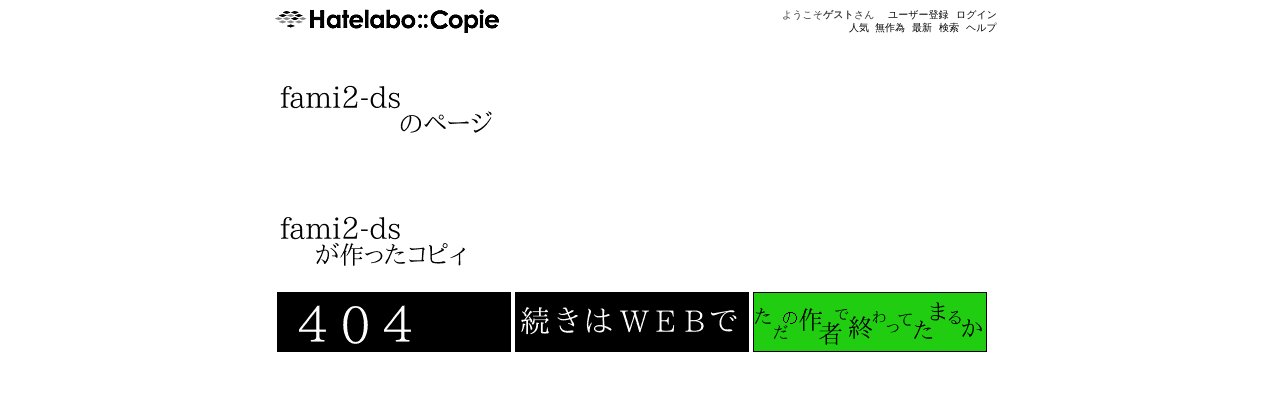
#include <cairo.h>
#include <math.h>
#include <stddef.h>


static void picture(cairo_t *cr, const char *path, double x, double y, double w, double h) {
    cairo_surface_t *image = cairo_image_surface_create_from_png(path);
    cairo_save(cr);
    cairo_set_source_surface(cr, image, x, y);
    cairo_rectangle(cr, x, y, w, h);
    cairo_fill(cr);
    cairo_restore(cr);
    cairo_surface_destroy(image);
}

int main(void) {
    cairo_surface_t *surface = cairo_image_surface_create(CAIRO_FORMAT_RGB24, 1272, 400);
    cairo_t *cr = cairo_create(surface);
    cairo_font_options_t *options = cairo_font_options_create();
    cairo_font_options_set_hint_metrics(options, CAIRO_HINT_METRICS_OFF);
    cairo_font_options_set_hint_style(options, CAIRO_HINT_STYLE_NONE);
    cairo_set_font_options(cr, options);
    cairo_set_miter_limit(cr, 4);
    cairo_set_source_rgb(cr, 1, 1, 1);
    cairo_paint(cr);
    picture(cr, "img1.png", 275, 9, 224, 24);
    cairo_select_font_face(cr, "WenQuanYi Zen Hei Medium", CAIRO_FONT_SLANT_NORMAL, CAIRO_FONT_WEIGHT_NORMAL);
    cairo_set_font_size(cr, 10);
    cairo_set_source_rgb(cr, 0.2, 0.2, 0.2);
    cairo_move_to(cr, 782, 18);
    cairo_show_text(cr, "ようこそ");
    cairo_select_font_face(cr, "WenQuanYi Zen Hei", CAIRO_FONT_SLANT_NORMAL, CAIRO_FONT_WEIGHT_BOLD);
    cairo_move_to(cr, 823, 18);
    cairo_show_text(cr, "ゲスト");
    cairo_select_font_face(cr, "WenQuanYi Zen Hei Medium", CAIRO_FONT_SLANT_NORMAL, CAIRO_FONT_WEIGHT_NORMAL);
    cairo_move_to(cr, 854, 18);
    cairo_show_text(cr, "さん");
    cairo_set_source_rgb(cr, 0, 0, 0);
    cairo_move_to(cr, 888, 18);
    cairo_show_text(cr, "ユーザー登録");
    cairo_move_to(cr, 956, 18);
    cairo_show_text(cr, "ログイン");
    cairo_move_to(cr, 849, 31);
    cairo_show_text(cr, "人気");
    cairo_move_to(cr, 875, 31);
    cairo_show_text(cr, "無作為");
    cairo_move_to(cr, 912, 31);
    cairo_show_text(cr, "最新");
    cairo_move_to(cr, 939, 31);
    cairo_show_text(cr, "検索");
    cairo_move_to(cr, 966, 31);
    cairo_show_text(cr, "ヘルプ");
    picture(cr, "img2.png", 280, 85, 212, 48);
    picture(cr, "img3.png", 280, 216, 185, 50);
    picture(cr, "img4.png", 277, 292, 234, 60);
    picture(cr, "img5.png", 515, 292, 234, 60);
    picture(cr, "img6.png", 753, 292, 234, 60);
    cairo_surface_write_to_png(surface, "page.png");
    cairo_font_options_destroy(options);
    cairo_destroy(cr);
    cairo_surface_destroy(surface);
    return 0;
}
